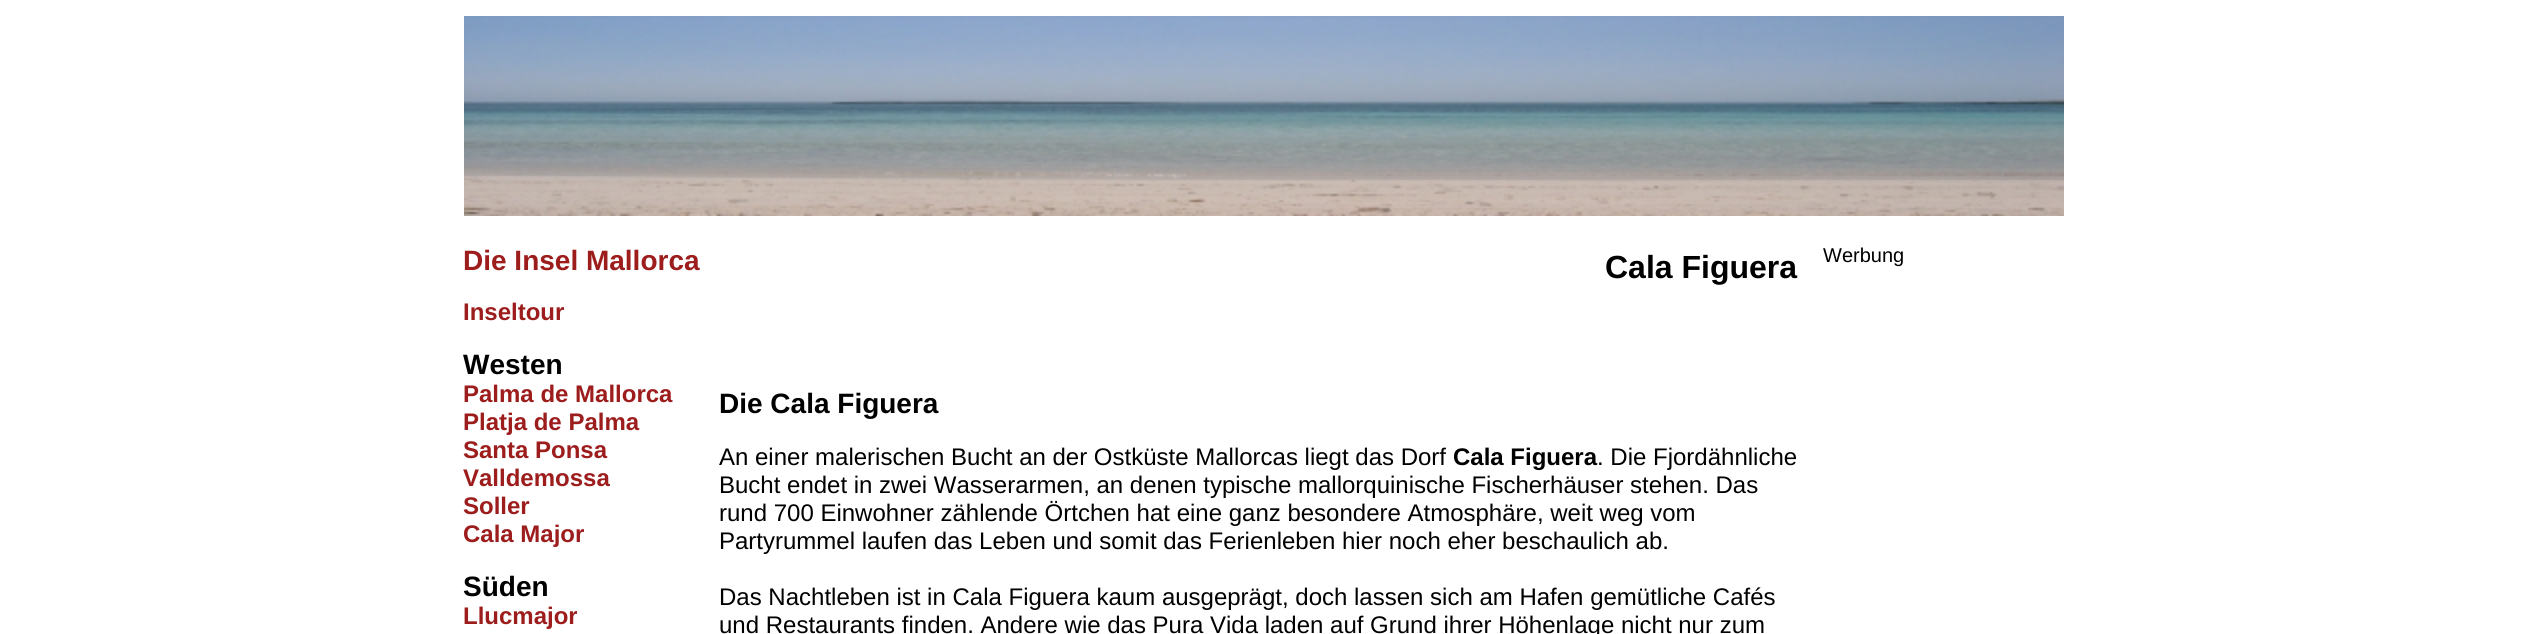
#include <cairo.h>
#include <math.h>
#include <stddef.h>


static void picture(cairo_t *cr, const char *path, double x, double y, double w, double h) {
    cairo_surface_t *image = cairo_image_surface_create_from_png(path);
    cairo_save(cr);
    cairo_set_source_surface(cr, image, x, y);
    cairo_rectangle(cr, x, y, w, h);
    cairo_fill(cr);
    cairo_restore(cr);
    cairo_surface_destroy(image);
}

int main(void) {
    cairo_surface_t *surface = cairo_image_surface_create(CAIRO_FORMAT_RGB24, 2526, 634);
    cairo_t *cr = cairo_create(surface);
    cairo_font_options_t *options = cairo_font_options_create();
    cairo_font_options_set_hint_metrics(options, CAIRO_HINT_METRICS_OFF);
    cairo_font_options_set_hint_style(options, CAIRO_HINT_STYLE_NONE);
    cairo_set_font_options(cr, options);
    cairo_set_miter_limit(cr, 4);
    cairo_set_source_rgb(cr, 1, 1, 1);
    cairo_paint(cr);
    picture(cr, "img1.png", 464, 16, 1600, 200);
    cairo_select_font_face(cr, "Liberation Sans", CAIRO_FONT_SLANT_NORMAL, CAIRO_FONT_WEIGHT_BOLD);
    cairo_set_font_size(cr, 28);
    cairo_set_source_rgb(cr, 0.616, 0.114, 0.114);
    cairo_move_to(cr, 463, 270);
    cairo_show_text(cr, "Die Insel Mallorca");
    cairo_set_font_size(cr, 24);
    cairo_move_to(cr, 463, 320);
    cairo_show_text(cr, "Inseltour");
    cairo_set_font_size(cr, 28);
    cairo_set_source_rgb(cr, 0, 0, 0);
    cairo_move_to(cr, 463, 374);
    cairo_show_text(cr, "Westen");
    cairo_set_font_size(cr, 24);
    cairo_set_source_rgb(cr, 0.616, 0.114, 0.114);
    cairo_move_to(cr, 463, 402);
    cairo_show_text(cr, "Palma de Mallorca");
    cairo_move_to(cr, 463, 430);
    cairo_show_text(cr, "Platja de Palma");
    cairo_move_to(cr, 463, 458);
    cairo_show_text(cr, "Santa Ponsa");
    cairo_move_to(cr, 463, 486);
    cairo_show_text(cr, "Valldemossa");
    cairo_move_to(cr, 463, 514);
    cairo_show_text(cr, "Soller");
    cairo_move_to(cr, 463, 542);
    cairo_show_text(cr, "Cala Major");
    cairo_set_font_size(cr, 28);
    cairo_set_source_rgb(cr, 0, 0, 0);
    cairo_move_to(cr, 463, 596);
    cairo_show_text(cr, "Süden");
    cairo_set_font_size(cr, 24);
    cairo_set_source_rgb(cr, 0.616, 0.114, 0.114);
    cairo_move_to(cr, 463, 624);
    cairo_show_text(cr, "Llucmajor");
    cairo_set_font_size(cr, 32);
    cairo_set_source_rgb(cr, 0, 0, 0);
    cairo_move_to(cr, 1605, 278);
    cairo_show_text(cr, "Cala Figuera");
    cairo_set_font_size(cr, 28);
    cairo_move_to(cr, 719, 413);
    cairo_show_text(cr, "Die Cala Figuera");
    cairo_select_font_face(cr, "Liberation Sans", CAIRO_FONT_SLANT_NORMAL, CAIRO_FONT_WEIGHT_NORMAL);
    cairo_set_font_size(cr, 24);
    cairo_move_to(cr, 719, 465);
    cairo_show_text(cr, "An einer malerischen Bucht an der Ostküste Mallorcas liegt das Dorf");
    cairo_select_font_face(cr, "Liberation Sans", CAIRO_FONT_SLANT_NORMAL, CAIRO_FONT_WEIGHT_BOLD);
    cairo_move_to(cr, 1453, 465);
    cairo_show_text(cr, "Cala Figuera");
    cairo_select_font_face(cr, "Liberation Sans", CAIRO_FONT_SLANT_NORMAL, CAIRO_FONT_WEIGHT_NORMAL);
    cairo_move_to(cr, 1597, 465);
    cairo_show_text(cr, ". Die Fjordähnliche");
    cairo_move_to(cr, 719, 493);
    cairo_show_text(cr, "Bucht endet in zwei Wasserarmen, an denen typische mallorquinische Fischerhäuser stehen. Das");
    cairo_move_to(cr, 719, 521);
    cairo_show_text(cr, "rund 700 Einwohner zählende Örtchen hat eine ganz besondere Atmosphäre, weit weg vom");
    cairo_move_to(cr, 719, 549);
    cairo_show_text(cr, "Partyrummel laufen das Leben und somit das Ferienleben hier noch eher beschaulich ab.");
    cairo_move_to(cr, 719, 605);
    cairo_show_text(cr, "Das Nachtleben ist in Cala Figuera kaum ausgeprägt, doch lassen sich am Hafen gemütliche Cafés");
    cairo_move_to(cr, 719, 633);
    cairo_show_text(cr, "und Restaurants finden. Andere wie das Pura Vida laden auf Grund ihrer Höhenlage nicht nur zum");
    cairo_set_font_size(cr, 20);
    cairo_move_to(cr, 1823, 262);
    cairo_show_text(cr, "Werbung");
    cairo_surface_write_to_png(surface, "page.png");
    cairo_font_options_destroy(options);
    cairo_destroy(cr);
    cairo_surface_destroy(surface);
    return 0;
}
